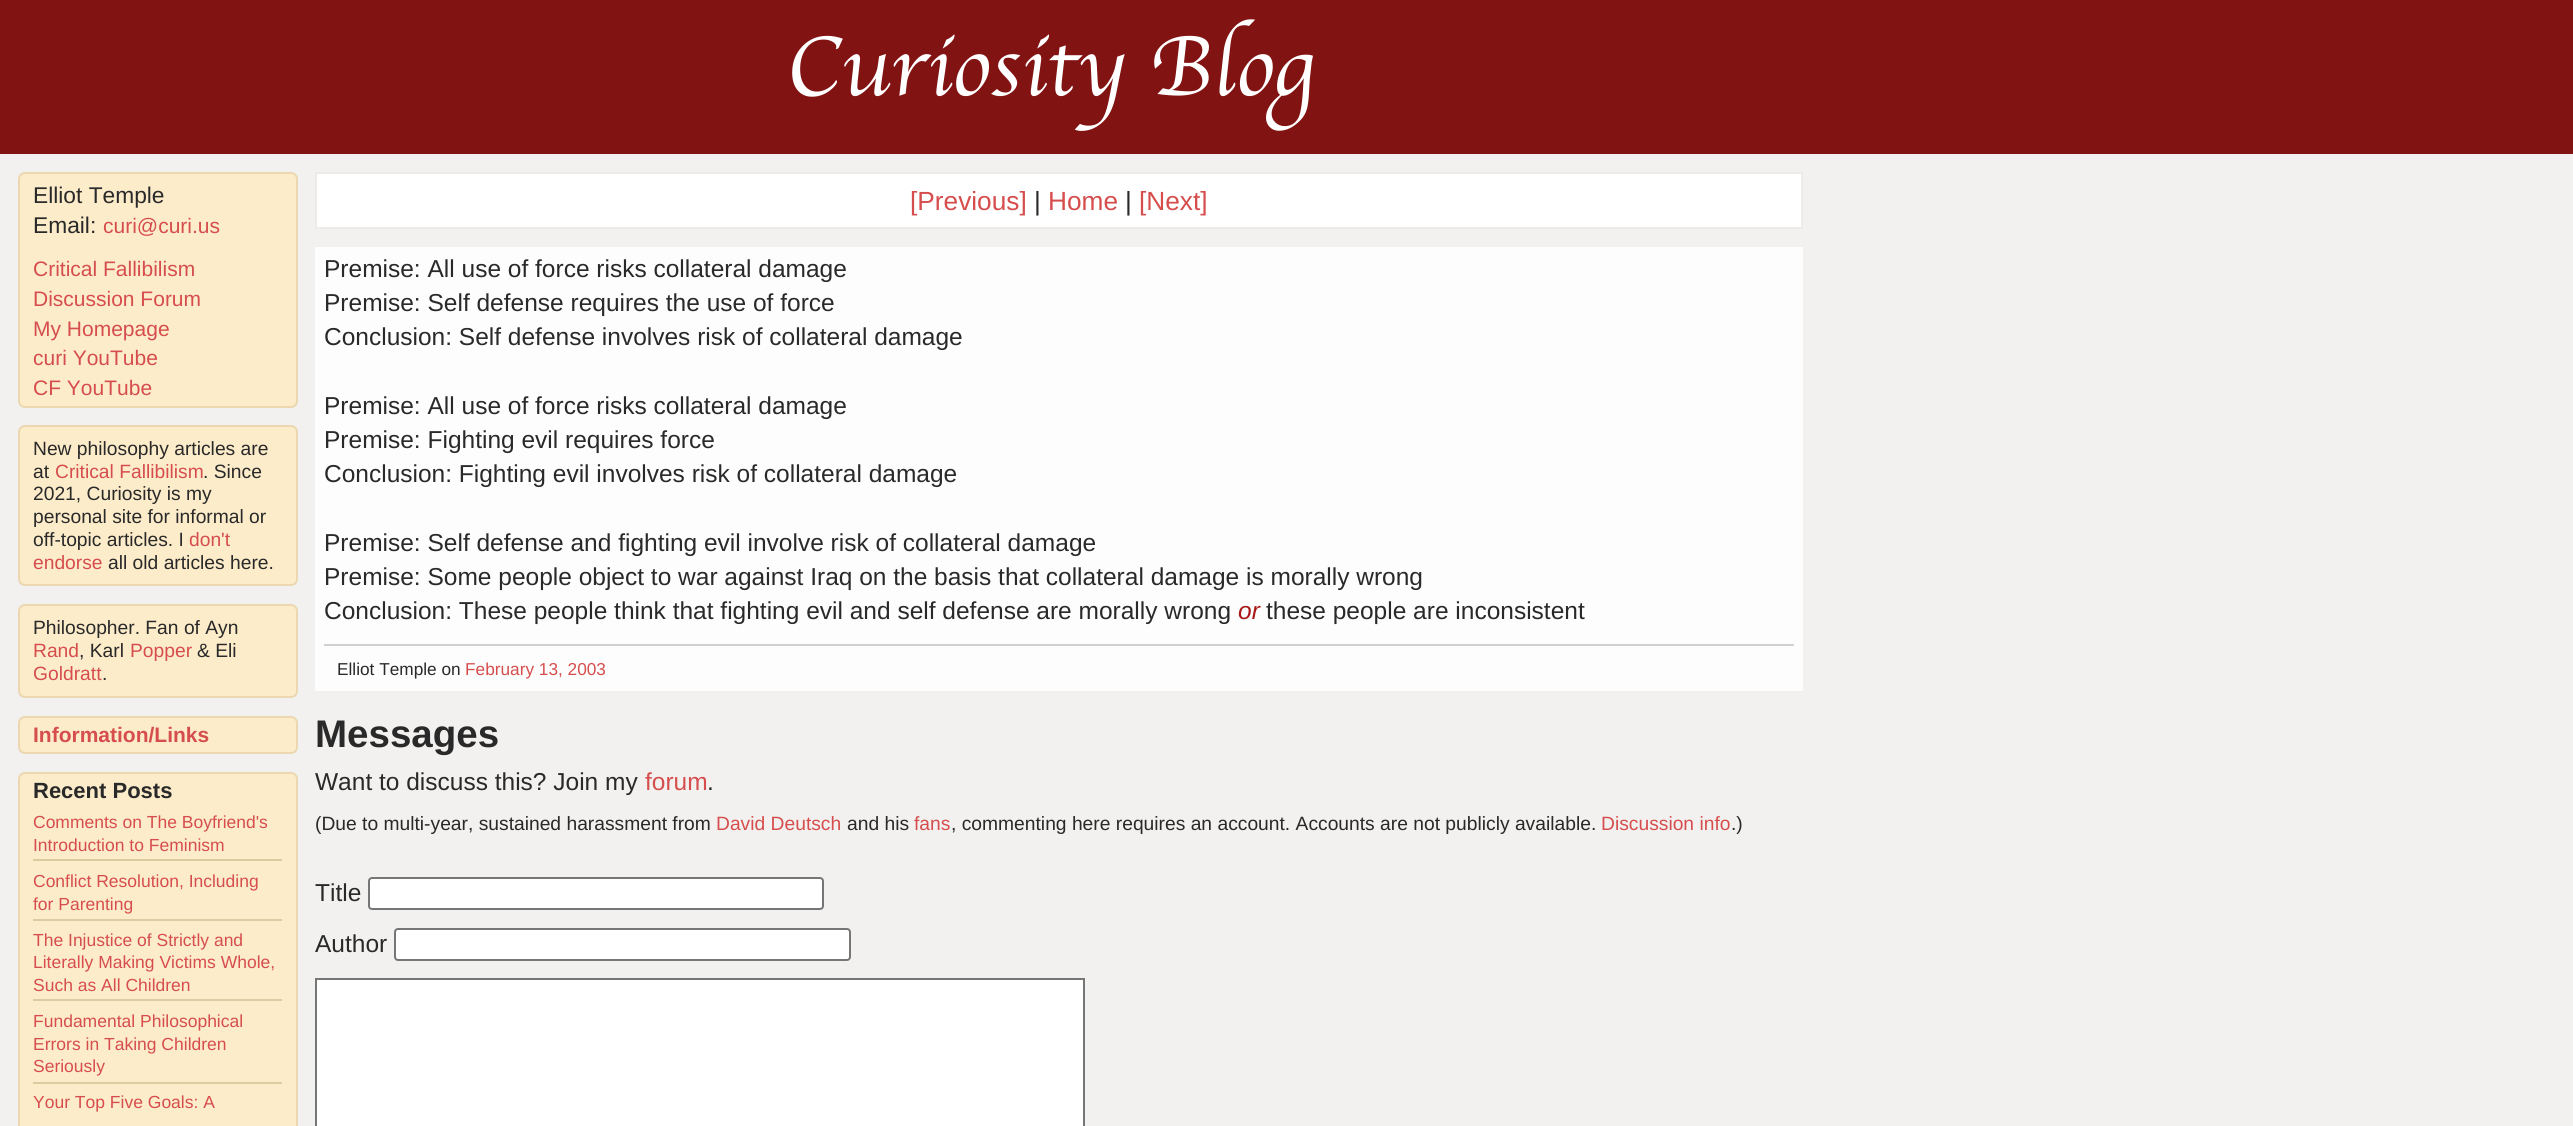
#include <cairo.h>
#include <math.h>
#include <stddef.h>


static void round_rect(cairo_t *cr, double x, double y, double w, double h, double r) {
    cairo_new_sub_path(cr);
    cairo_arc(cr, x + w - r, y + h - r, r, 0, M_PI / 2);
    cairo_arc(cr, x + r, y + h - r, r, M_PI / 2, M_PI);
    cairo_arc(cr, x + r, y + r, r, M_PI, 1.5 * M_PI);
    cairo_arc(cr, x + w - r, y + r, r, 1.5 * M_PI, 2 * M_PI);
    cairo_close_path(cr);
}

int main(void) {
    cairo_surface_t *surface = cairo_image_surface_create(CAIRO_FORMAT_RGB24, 2573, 1126);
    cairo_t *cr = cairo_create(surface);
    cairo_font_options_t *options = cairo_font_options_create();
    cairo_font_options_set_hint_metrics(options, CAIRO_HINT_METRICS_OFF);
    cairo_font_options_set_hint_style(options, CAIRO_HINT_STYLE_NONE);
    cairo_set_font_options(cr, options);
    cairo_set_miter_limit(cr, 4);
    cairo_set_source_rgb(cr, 0.949, 0.945, 0.941);
    cairo_paint(cr);
    cairo_set_source_rgb(cr, 0.51, 0.078, 0.078);
    cairo_rectangle(cr, 0, 0, 2573, 154);
    cairo_fill(cr);
    cairo_select_font_face(cr, "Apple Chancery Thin", CAIRO_FONT_SLANT_NORMAL, CAIRO_FONT_WEIGHT_NORMAL);
    cairo_set_font_size(cr, 87.5);
    cairo_set_source_rgb(cr, 1, 1, 1);
    cairo_move_to(cr, 786, 95);
    cairo_show_text(cr, "Curiosity Blog");
    cairo_set_source_rgb(cr, 0.988, 0.925, 0.792);
    round_rect(cr, 19, 173, 278, 234, 6);
    cairo_fill_preserve(cr);
    cairo_set_source_rgb(cr, 0.922, 0.847, 0.69);
    cairo_stroke(cr);
    cairo_select_font_face(cr, "Liberation Sans", CAIRO_FONT_SLANT_NORMAL, CAIRO_FONT_WEIGHT_NORMAL);
    cairo_set_font_size(cr, 22.75);
    cairo_set_source_rgb(cr, 0.161, 0.161, 0.161);
    cairo_move_to(cr, 33, 203);
    cairo_show_text(cr, "Elliot Temple");
    cairo_move_to(cr, 33, 233);
    cairo_show_text(cr, "Email:");
    cairo_set_font_size(cr, 21);
    cairo_set_source_rgb(cr, 0.839, 0.302, 0.302);
    cairo_move_to(cr, 103, 233);
    cairo_show_text(cr, "curi@curi.us");
    cairo_move_to(cr, 33, 276);
    cairo_show_text(cr, "Critical Fallibilism");
    cairo_move_to(cr, 33, 306);
    cairo_show_text(cr, "Discussion Forum");
    cairo_move_to(cr, 33, 336);
    cairo_show_text(cr, "My Homepage");
    cairo_move_to(cr, 33, 365);
    cairo_show_text(cr, "curi YouTube");
    cairo_move_to(cr, 33, 395);
    cairo_show_text(cr, "CF YouTube");
    cairo_set_source_rgb(cr, 0.988, 0.925, 0.792);
    round_rect(cr, 19, 426, 278, 159, 6);
    cairo_fill_preserve(cr);
    cairo_set_source_rgb(cr, 0.922, 0.847, 0.69);
    cairo_stroke(cr);
    cairo_set_font_size(cr, 19.25);
    cairo_set_source_rgb(cr, 0.161, 0.161, 0.161);
    cairo_move_to(cr, 33, 455);
    cairo_show_text(cr, "New philosophy articles are");
    cairo_move_to(cr, 33, 478);
    cairo_show_text(cr, "at");
    cairo_set_source_rgb(cr, 0.839, 0.302, 0.302);
    cairo_move_to(cr, 55, 478);
    cairo_show_text(cr, "Critical Fallibilism");
    cairo_set_source_rgb(cr, 0.161, 0.161, 0.161);
    cairo_move_to(cr, 203, 478);
    cairo_show_text(cr, ". Since");
    cairo_move_to(cr, 33, 500);
    cairo_show_text(cr, "2021, Curiosity is my");
    cairo_move_to(cr, 33, 523);
    cairo_show_text(cr, "personal site for informal or");
    cairo_move_to(cr, 33, 546);
    cairo_show_text(cr, "off-topic articles. I");
    cairo_set_source_rgb(cr, 0.839, 0.302, 0.302);
    cairo_move_to(cr, 189, 546);
    cairo_show_text(cr, "don't");
    cairo_move_to(cr, 33, 569);
    cairo_show_text(cr, "endorse");
    cairo_set_source_rgb(cr, 0.161, 0.161, 0.161);
    cairo_move_to(cr, 108, 569);
    cairo_show_text(cr, "all old articles here.");
    cairo_set_source_rgb(cr, 0.988, 0.925, 0.792);
    round_rect(cr, 19, 605, 278, 92, 6);
    cairo_fill_preserve(cr);
    cairo_set_source_rgb(cr, 0.922, 0.847, 0.69);
    cairo_stroke(cr);
    cairo_set_source_rgb(cr, 0.161, 0.161, 0.161);
    cairo_move_to(cr, 33, 634);
    cairo_show_text(cr, "Philosopher. Fan of Ayn");
    cairo_set_source_rgb(cr, 0.839, 0.302, 0.302);
    cairo_move_to(cr, 33, 657);
    cairo_show_text(cr, "Rand");
    cairo_set_source_rgb(cr, 0.161, 0.161, 0.161);
    cairo_move_to(cr, 79, 657);
    cairo_show_text(cr, ", Karl");
    cairo_set_source_rgb(cr, 0.839, 0.302, 0.302);
    cairo_move_to(cr, 130, 657);
    cairo_show_text(cr, "Popper");
    cairo_set_source_rgb(cr, 0.161, 0.161, 0.161);
    cairo_move_to(cr, 197, 657);
    cairo_show_text(cr, "& Eli");
    cairo_set_source_rgb(cr, 0.839, 0.302, 0.302);
    cairo_move_to(cr, 33, 680);
    cairo_show_text(cr, "Goldratt");
    cairo_set_source_rgb(cr, 0.161, 0.161, 0.161);
    cairo_move_to(cr, 102, 680);
    cairo_show_text(cr, ".");
    cairo_set_source_rgb(cr, 0.988, 0.925, 0.792);
    round_rect(cr, 19, 717, 278, 36, 6);
    cairo_fill_preserve(cr);
    cairo_set_source_rgb(cr, 0.922, 0.847, 0.69);
    cairo_stroke(cr);
    cairo_select_font_face(cr, "Liberation Sans", CAIRO_FONT_SLANT_NORMAL, CAIRO_FONT_WEIGHT_BOLD);
    cairo_set_font_size(cr, 21);
    cairo_set_source_rgb(cr, 0.839, 0.302, 0.302);
    cairo_move_to(cr, 33, 742);
    cairo_show_text(cr, "Information/Links");
    cairo_set_source_rgb(cr, 0.988, 0.925, 0.792);
    round_rect(cr, 19, 773, 278, 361, 6);
    cairo_fill_preserve(cr);
    cairo_set_source_rgb(cr, 0.922, 0.847, 0.69);
    cairo_stroke(cr);
    cairo_set_font_size(cr, 22);
    cairo_set_source_rgb(cr, 0.161, 0.161, 0.161);
    cairo_move_to(cr, 33, 798);
    cairo_show_text(cr, "Recent Posts");
    cairo_set_source_rgb(cr, 0.871, 0.792, 0.627);
    cairo_rectangle(cr, 33, 859, 249, 2);
    cairo_fill(cr);
    cairo_select_font_face(cr, "Liberation Sans", CAIRO_FONT_SLANT_NORMAL, CAIRO_FONT_WEIGHT_NORMAL);
    cairo_set_font_size(cr, 17.5);
    cairo_set_source_rgb(cr, 0.839, 0.302, 0.302);
    cairo_move_to(cr, 33, 828);
    cairo_show_text(cr, "Comments on The Boyfriend's");
    cairo_move_to(cr, 33, 851);
    cairo_show_text(cr, "Introduction to Feminism");
    cairo_set_source_rgb(cr, 0.871, 0.792, 0.627);
    cairo_rectangle(cr, 33, 919, 249, 2);
    cairo_fill(cr);
    cairo_set_source_rgb(cr, 0.839, 0.302, 0.302);
    cairo_move_to(cr, 33, 887);
    cairo_show_text(cr, "Conflict Resolution, Including");
    cairo_move_to(cr, 33, 910);
    cairo_show_text(cr, "for Parenting");
    cairo_set_source_rgb(cr, 0.871, 0.792, 0.627);
    cairo_rectangle(cr, 33, 999, 249, 2);
    cairo_fill(cr);
    cairo_set_source_rgb(cr, 0.839, 0.302, 0.302);
    cairo_move_to(cr, 33, 946);
    cairo_show_text(cr, "The Injustice of Strictly and");
    cairo_move_to(cr, 33, 968);
    cairo_show_text(cr, "Literally Making Victims Whole,");
    cairo_move_to(cr, 33, 991);
    cairo_show_text(cr, "Such as All Children");
    cairo_set_source_rgb(cr, 0.871, 0.792, 0.627);
    cairo_rectangle(cr, 33, 1082, 249, 2);
    cairo_fill(cr);
    cairo_set_source_rgb(cr, 0.839, 0.302, 0.302);
    cairo_move_to(cr, 33, 1027);
    cairo_show_text(cr, "Fundamental Philosophical");
    cairo_move_to(cr, 33, 1050);
    cairo_show_text(cr, "Errors in Taking Children");
    cairo_move_to(cr, 33, 1072);
    cairo_show_text(cr, "Seriously");
    cairo_move_to(cr, 33, 1108);
    cairo_show_text(cr, "Your Top Five Goals: A");
    cairo_set_source_rgb(cr, 1, 1, 1);
    cairo_rectangle(cr, 316, 173, 1486, 55);
    cairo_fill_preserve(cr);
    cairo_set_source_rgb(cr, 0.922, 0.918, 0.914);
    cairo_stroke(cr);
    cairo_set_font_size(cr, 26.25);
    cairo_set_source_rgb(cr, 0.839, 0.302, 0.302);
    cairo_move_to(cr, 910, 210);
    cairo_show_text(cr, "[Previous]");
    cairo_set_source_rgb(cr, 0.161, 0.161, 0.161);
    cairo_move_to(cr, 1034, 210);
    cairo_show_text(cr, "|");
    cairo_set_source_rgb(cr, 0.839, 0.302, 0.302);
    cairo_move_to(cr, 1048, 210);
    cairo_show_text(cr, "Home");
    cairo_set_source_rgb(cr, 0.161, 0.161, 0.161);
    cairo_move_to(cr, 1125, 210);
    cairo_show_text(cr, "|");
    cairo_set_source_rgb(cr, 0.839, 0.302, 0.302);
    cairo_move_to(cr, 1139, 210);
    cairo_show_text(cr, "[Next]");
    cairo_set_source_rgb(cr, 0.992, 0.992, 0.992);
    cairo_rectangle(cr, 315, 247, 1488, 444);
    cairo_fill(cr);
    cairo_set_font_size(cr, 24.5);
    cairo_set_source_rgb(cr, 0.161, 0.161, 0.161);
    cairo_move_to(cr, 324, 277);
    cairo_show_text(cr, "Premise: All use of force risks collateral damage");
    cairo_move_to(cr, 324, 311);
    cairo_show_text(cr, "Premise: Self defense requires the use of force");
    cairo_move_to(cr, 324, 345);
    cairo_show_text(cr, "Conclusion: Self defense involves risk of collateral damage");
    cairo_move_to(cr, 324, 414);
    cairo_show_text(cr, "Premise: All use of force risks collateral damage");
    cairo_move_to(cr, 324, 448);
    cairo_show_text(cr, "Premise: Fighting evil requires force");
    cairo_move_to(cr, 324, 482);
    cairo_show_text(cr, "Conclusion: Fighting evil involves risk of collateral damage");
    cairo_move_to(cr, 324, 551);
    cairo_show_text(cr, "Premise: Self defense and fighting evil involve risk of collateral damage");
    cairo_move_to(cr, 324, 585);
    cairo_show_text(cr, "Premise: Some people object to war against Iraq on the basis that collateral damage is morally wrong");
    cairo_move_to(cr, 324, 619);
    cairo_show_text(cr, "Conclusion: These people think that fighting evil and self defense are morally wrong");
    cairo_select_font_face(cr, "Liberation Sans", CAIRO_FONT_SLANT_ITALIC, CAIRO_FONT_WEIGHT_NORMAL);
    cairo_set_source_rgb(cr, 0.659, 0.09, 0.09);
    cairo_move_to(cr, 1238, 619);
    cairo_show_text(cr, "or");
    cairo_select_font_face(cr, "Liberation Sans", CAIRO_FONT_SLANT_NORMAL, CAIRO_FONT_WEIGHT_NORMAL);
    cairo_set_source_rgb(cr, 0.161, 0.161, 0.161);
    cairo_move_to(cr, 1266, 619);
    cairo_show_text(cr, "these people are inconsistent");
    cairo_set_source_rgb(cr, 0.816, 0.816, 0.816);
    cairo_rectangle(cr, 324, 644, 1470, 2);
    cairo_fill(cr);
    cairo_set_font_size(cr, 17.25);
    cairo_set_source_rgb(cr, 0.161, 0.161, 0.161);
    cairo_move_to(cr, 337, 675);
    cairo_show_text(cr, "Elliot Temple on");
    cairo_set_source_rgb(cr, 0.839, 0.302, 0.302);
    cairo_move_to(cr, 465, 675);
    cairo_show_text(cr, "February 13, 2003");
    cairo_select_font_face(cr, "Liberation Sans", CAIRO_FONT_SLANT_NORMAL, CAIRO_FONT_WEIGHT_BOLD);
    cairo_set_font_size(cr, 38.5);
    cairo_set_source_rgb(cr, 0.161, 0.161, 0.161);
    cairo_move_to(cr, 315, 747);
    cairo_show_text(cr, "Messages");
    cairo_select_font_face(cr, "Liberation Sans", CAIRO_FONT_SLANT_NORMAL, CAIRO_FONT_WEIGHT_NORMAL);
    cairo_set_font_size(cr, 24.5);
    cairo_move_to(cr, 315, 790);
    cairo_show_text(cr, "Want to discuss this? Join my");
    cairo_set_source_rgb(cr, 0.839, 0.302, 0.302);
    cairo_move_to(cr, 645, 790);
    cairo_show_text(cr, "forum");
    cairo_set_source_rgb(cr, 0.161, 0.161, 0.161);
    cairo_move_to(cr, 707, 790);
    cairo_show_text(cr, ".");
    cairo_set_font_size(cr, 19.25);
    cairo_move_to(cr, 315, 830);
    cairo_show_text(cr, "(Due to multi-year, sustained harassment from");
    cairo_set_source_rgb(cr, 0.839, 0.302, 0.302);
    cairo_move_to(cr, 716, 830);
    cairo_show_text(cr, "David Deutsch");
    cairo_set_source_rgb(cr, 0.161, 0.161, 0.161);
    cairo_move_to(cr, 847, 830);
    cairo_show_text(cr, "and his");
    cairo_set_source_rgb(cr, 0.839, 0.302, 0.302);
    cairo_move_to(cr, 914, 830);
    cairo_show_text(cr, "fans");
    cairo_set_source_rgb(cr, 0.161, 0.161, 0.161);
    cairo_move_to(cr, 951, 830);
    cairo_show_text(cr, ", commenting here requires an account. Accounts are not publicly available.");
    cairo_set_source_rgb(cr, 0.839, 0.302, 0.302);
    cairo_move_to(cr, 1601, 830);
    cairo_show_text(cr, "Discussion info");
    cairo_set_source_rgb(cr, 0.161, 0.161, 0.161);
    cairo_move_to(cr, 1731, 830);
    cairo_show_text(cr, ".)");
    cairo_set_font_size(cr, 24.5);
    cairo_move_to(cr, 315, 901);
    cairo_show_text(cr, "Title");
    cairo_set_source_rgb(cr, 1, 1, 1);
    round_rect(cr, 369, 878, 454, 31, 3);
    cairo_fill_preserve(cr);
    cairo_set_source_rgb(cr, 0.463, 0.463, 0.463);
    cairo_stroke(cr);
    cairo_set_source_rgb(cr, 0.161, 0.161, 0.161);
    cairo_move_to(cr, 315, 952);
    cairo_show_text(cr, "Author");
    cairo_set_source_rgb(cr, 1, 1, 1);
    round_rect(cr, 395, 929, 455, 31, 3);
    cairo_fill_preserve(cr);
    cairo_set_source_rgb(cr, 0.463, 0.463, 0.463);
    cairo_stroke(cr);
    cairo_set_source_rgb(cr, 1, 1, 1);
    cairo_rectangle(cr, 316, 979, 768, 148);
    cairo_fill_preserve(cr);
    cairo_set_source_rgb(cr, 0.463, 0.463, 0.463);
    cairo_stroke(cr);
    cairo_surface_write_to_png(surface, "page.png");
    cairo_font_options_destroy(options);
    cairo_destroy(cr);
    cairo_surface_destroy(surface);
    return 0;
}
